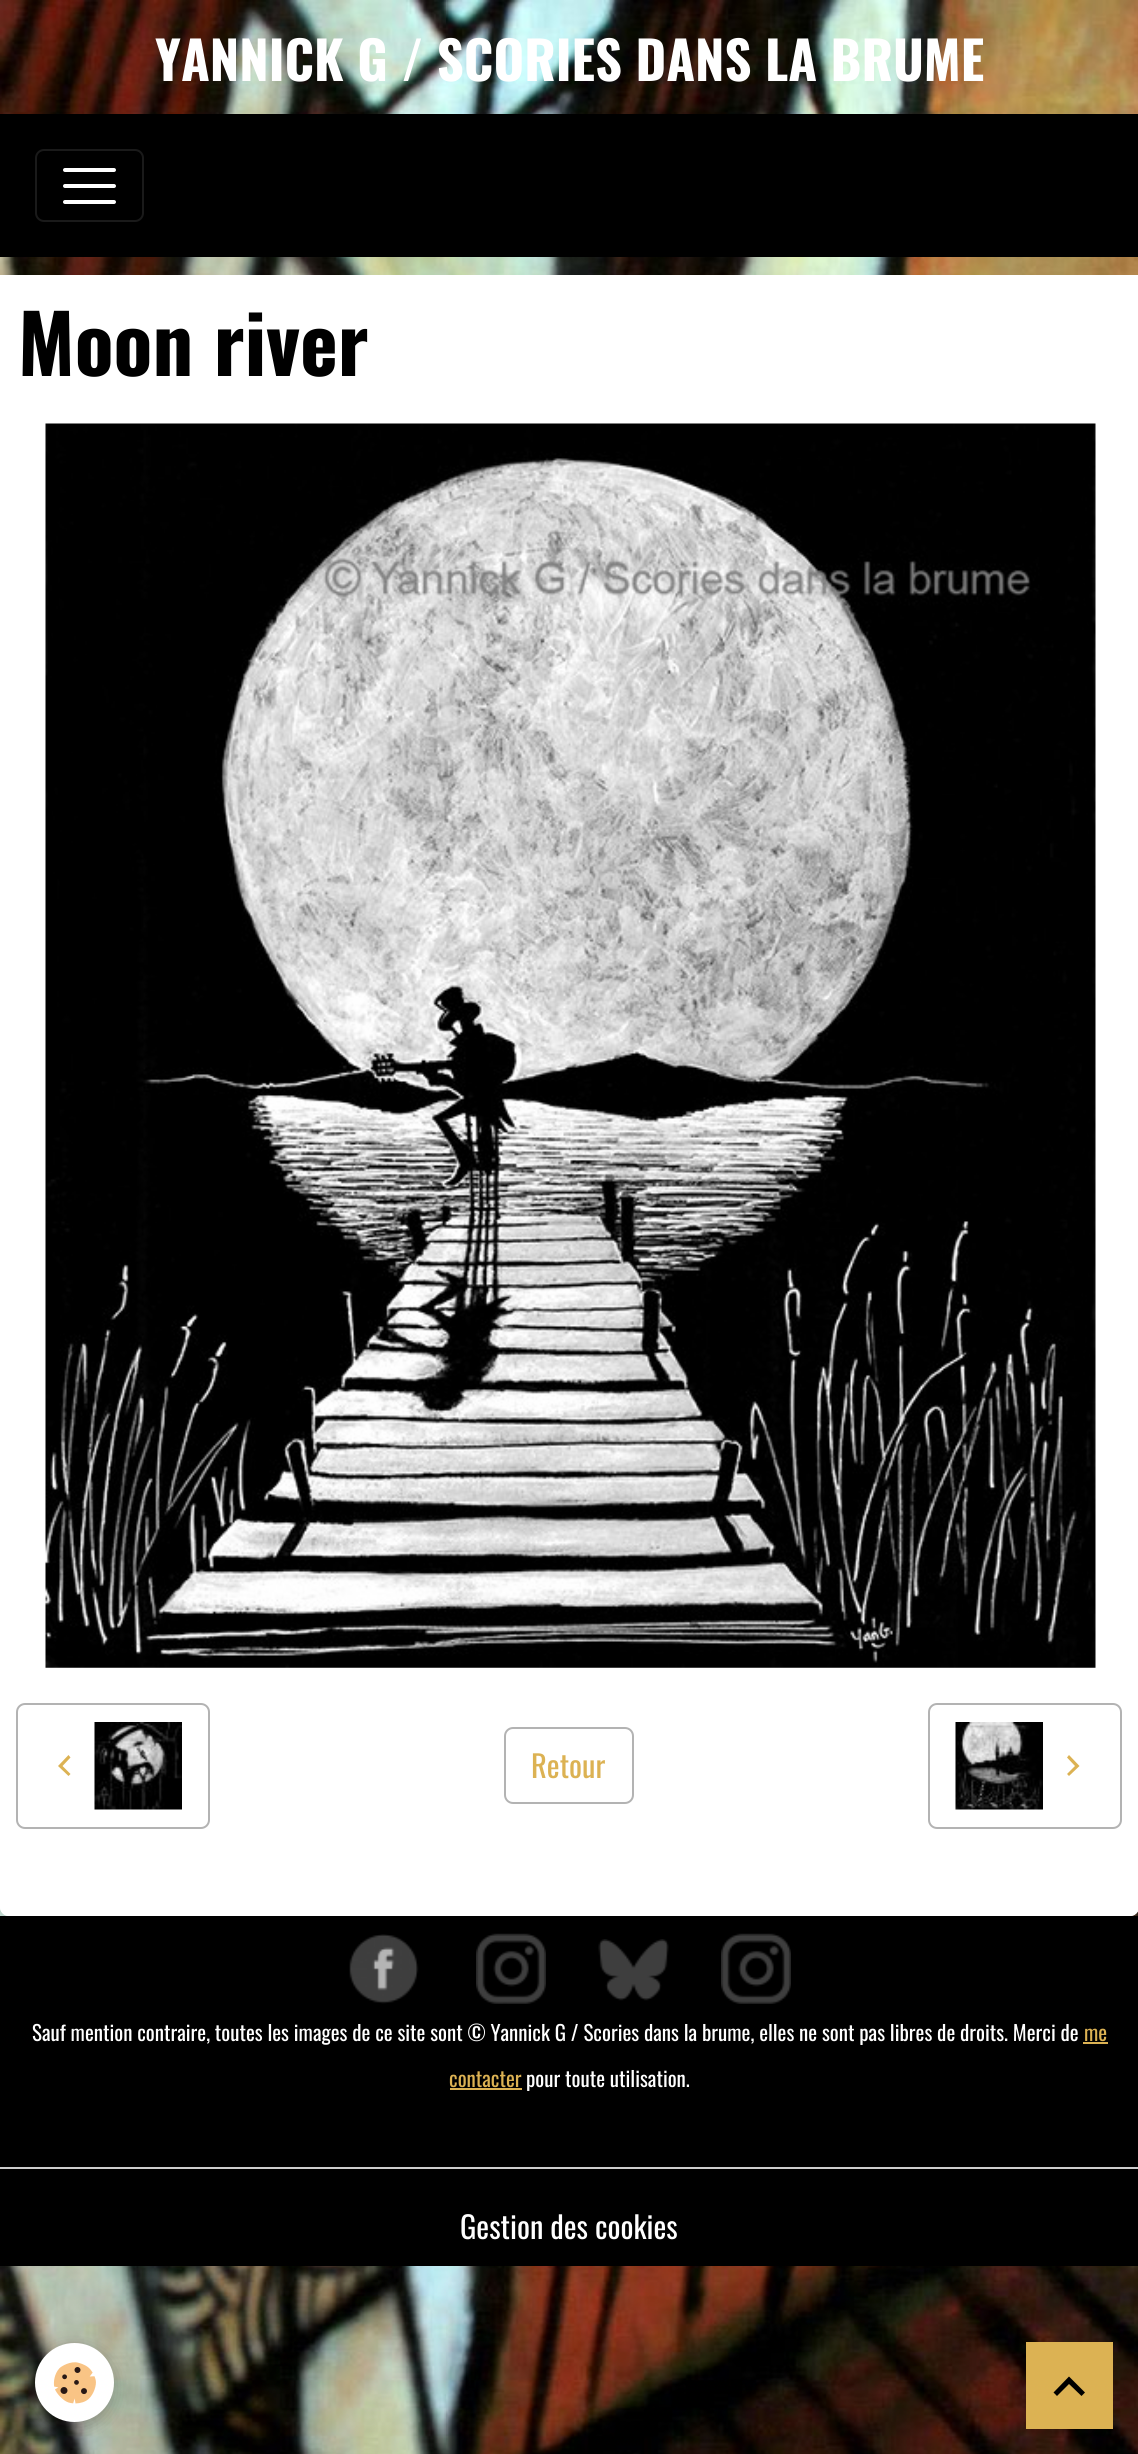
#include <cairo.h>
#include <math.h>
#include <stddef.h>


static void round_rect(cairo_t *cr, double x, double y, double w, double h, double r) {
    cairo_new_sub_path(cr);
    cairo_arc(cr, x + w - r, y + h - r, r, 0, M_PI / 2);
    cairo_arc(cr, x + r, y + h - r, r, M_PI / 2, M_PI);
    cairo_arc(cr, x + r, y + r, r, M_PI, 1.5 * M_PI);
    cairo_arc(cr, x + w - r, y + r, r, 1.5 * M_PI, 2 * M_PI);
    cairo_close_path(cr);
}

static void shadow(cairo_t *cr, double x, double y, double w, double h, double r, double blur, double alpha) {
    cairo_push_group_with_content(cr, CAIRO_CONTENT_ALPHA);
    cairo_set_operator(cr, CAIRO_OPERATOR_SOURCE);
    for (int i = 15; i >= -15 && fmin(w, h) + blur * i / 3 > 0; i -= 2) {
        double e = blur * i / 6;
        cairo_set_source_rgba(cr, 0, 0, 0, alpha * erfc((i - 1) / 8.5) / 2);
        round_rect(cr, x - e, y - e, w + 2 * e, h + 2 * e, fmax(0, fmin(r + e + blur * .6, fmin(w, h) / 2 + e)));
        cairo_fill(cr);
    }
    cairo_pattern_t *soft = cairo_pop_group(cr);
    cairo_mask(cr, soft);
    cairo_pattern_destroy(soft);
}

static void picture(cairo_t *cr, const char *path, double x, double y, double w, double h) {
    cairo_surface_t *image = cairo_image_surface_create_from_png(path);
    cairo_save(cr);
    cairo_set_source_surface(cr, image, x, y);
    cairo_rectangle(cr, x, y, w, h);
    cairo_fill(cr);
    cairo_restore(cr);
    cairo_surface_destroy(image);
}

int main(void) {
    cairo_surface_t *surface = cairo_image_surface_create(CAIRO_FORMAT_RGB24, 1138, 2454);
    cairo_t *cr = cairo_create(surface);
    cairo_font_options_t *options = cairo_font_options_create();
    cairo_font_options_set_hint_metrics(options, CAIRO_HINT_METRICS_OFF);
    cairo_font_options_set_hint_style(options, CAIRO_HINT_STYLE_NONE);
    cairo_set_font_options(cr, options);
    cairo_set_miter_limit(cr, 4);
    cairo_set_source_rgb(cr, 1, 1, 1);
    cairo_paint(cr);
    picture(cr, "img1.png", 0, 0, 1138, 2454);
    cairo_select_font_face(cr, "Oswald", CAIRO_FONT_SLANT_NORMAL, CAIRO_FONT_WEIGHT_BOLD);
    cairo_set_font_size(cr, 52.5);
    cairo_set_source_rgb(cr, 1, 1, 1);
    cairo_move_to(cr, 155, 81);
    cairo_show_text(cr, "YANNICK G / SCORIES DANS LA BRUME");
    cairo_set_source_rgb(cr, 0, 0, 0);
    cairo_rectangle(cr, 0, 114, 1138, 143);
    cairo_fill(cr);
    round_rect(cr, 36, 150, 107, 71, 8);
    cairo_set_source_rgb(cr, 0.102, 0.102, 0.102);
    cairo_stroke(cr);
    cairo_set_source_rgb(cr, 1, 1, 1);
    round_rect(cr, 63, 168, 53, 4, 2);
    cairo_fill(cr);
    round_rect(cr, 63, 184, 53, 4, 2);
    cairo_fill(cr);
    round_rect(cr, 63, 200, 53, 4, 2);
    cairo_fill(cr);
    cairo_new_path(cr);
    cairo_move_to(cr, 0, 275);
    cairo_line_to(cr, 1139, 275);
    cairo_line_to(cr, 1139, 1907);
    cairo_curve_to(cr, 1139, 1912, 1135, 1916, 1130, 1916);
    cairo_line_to(cr, 9, 1916);
    cairo_curve_to(cr, 4, 1916, 0, 1912, 0, 1907);
    cairo_close_path(cr);
    cairo_fill(cr);
    round_rect(cr, 0, 275, 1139, 1641, 9);
    cairo_fill(cr);
    cairo_set_font_size(cr, 80.5);
    cairo_set_source_rgb(cr, 0, 0, 0);
    cairo_move_to(cr, 18, 376);
    cairo_show_text(cr, "Moon river");
    picture(cr, "img2.png", 45, 423, 1051, 1245);
    round_rect(cr, 17, 1704, 192, 124, 8);
    cairo_set_source_rgb(cr, 0.702, 0.702, 0.702);
    cairo_stroke(cr);
    cairo_set_source_rgb(cr, 0.863, 0.698, 0.325);
    cairo_new_path(cr);
    cairo_move_to(cr, 70.5, 1757.5);
    cairo_line_to(cr, 62.5, 1766);
    cairo_line_to(cr, 70.5, 1774);
    cairo_line_to(cr, 68.5, 1776);
    cairo_line_to(cr, 58, 1766);
    cairo_line_to(cr, 68.5, 1755);
    cairo_close_path(cr);
    cairo_fill(cr);
    picture(cr, "img3.png", 94, 1722, 88, 88);
    round_rect(cr, 505, 1728, 128, 75, 8);
    cairo_set_source_rgb(cr, 0.702, 0.702, 0.702);
    cairo_stroke(cr);
    cairo_select_font_face(cr, "Oswald", CAIRO_FONT_SLANT_NORMAL, CAIRO_FONT_WEIGHT_NORMAL);
    cairo_set_font_size(cr, 30.5);
    cairo_set_source_rgb(cr, 0.863, 0.698, 0.325);
    cairo_move_to(cr, 531, 1778);
    cairo_show_text(cr, "Retour");
    round_rect(cr, 929, 1704, 192, 124, 8);
    cairo_set_source_rgb(cr, 0.702, 0.702, 0.702);
    cairo_stroke(cr);
    picture(cr, "img4.png", 955, 1722, 88, 88);
    cairo_set_source_rgb(cr, 0.863, 0.698, 0.325);
    cairo_new_path(cr);
    cairo_move_to(cr, 1069, 1755);
    cairo_line_to(cr, 1079.5, 1766);
    cairo_line_to(cr, 1069, 1776);
    cairo_line_to(cr, 1067, 1774);
    cairo_line_to(cr, 1075, 1766);
    cairo_line_to(cr, 1067, 1757.5);
    cairo_close_path(cr);
    cairo_fill(cr);
    cairo_set_source_rgb(cr, 0, 0, 0);
    cairo_rectangle(cr, 0, 1916, 1138, 350);
    cairo_fill(cr);
    picture(cr, "img5.png", 349, 1934, 70, 70);
    picture(cr, "img6.png", 476, 1933, 70, 71);
    picture(cr, "img7.png", 598, 1939, 71, 62);
    picture(cr, "img8.png", 721, 1933, 70, 71);
    cairo_set_font_size(cr, 21);
    cairo_set_source_rgb(cr, 1, 1, 1);
    cairo_move_to(cr, 32, 2041);
    cairo_show_text(cr, "Sauf mention contraire, toutes les images de ce site sont © Yannick G / Scories dans la brume, elles ne sont pas libres de droits. Merci de");
    cairo_set_source_rgb(cr, 0.863, 0.698, 0.325);
    cairo_move_to(cr, 1084, 2041);
    cairo_show_text(cr, "me");
    cairo_rectangle(cr, 1083, 2042, 25, 2);
    cairo_fill(cr);
    cairo_move_to(cr, 449, 2087);
    cairo_show_text(cr, "contacter");
    cairo_rectangle(cr, 450, 2088, 72, 2);
    cairo_fill(cr);
    cairo_set_source_rgb(cr, 1, 1, 1);
    cairo_move_to(cr, 526, 2087);
    cairo_show_text(cr, "pour toute utilisation.");
    cairo_set_source_rgb(cr, 0.8, 0.8, 0.8);
    cairo_rectangle(cr, 0, 2167, 1138, 2);
    cairo_fill(cr);
    cairo_set_font_size(cr, 30.5);
    cairo_set_source_rgb(cr, 1, 1, 1);
    cairo_move_to(cr, 460, 2239);
    cairo_show_text(cr, "Gestion des cookies");
    cairo_set_source_rgb(cr, 0, 0, 0);
    shadow(cr, 35, 2349, 79, 78, 39, 9, 0.24);
    cairo_set_source_rgb(cr, 1, 1, 1);
    cairo_arc(cr, 74.5, 2382.5, 39.5, 0, 2 * M_PI);
    cairo_fill(cr);
    picture(cr, "img9.png", 53, 2362, 43, 42);
    cairo_set_source_rgb(cr, 0.863, 0.698, 0.325);
    cairo_rectangle(cr, 1026, 2342, 87, 87);
    cairo_fill(cr);
    cairo_set_source_rgb(cr, 0, 0, 0);
    cairo_new_path(cr);
    cairo_move_to(cr, 1069, 2376.5);
    cairo_line_to(cr, 1085, 2392.5);
    cairo_line_to(cr, 1081.5, 2396);
    cairo_line_to(cr, 1069, 2384);
    cairo_line_to(cr, 1057, 2396);
    cairo_line_to(cr, 1053.5, 2392.5);
    cairo_close_path(cr);
    cairo_fill(cr);
    cairo_surface_write_to_png(surface, "page.png");
    cairo_font_options_destroy(options);
    cairo_destroy(cr);
    cairo_surface_destroy(surface);
    return 0;
}
